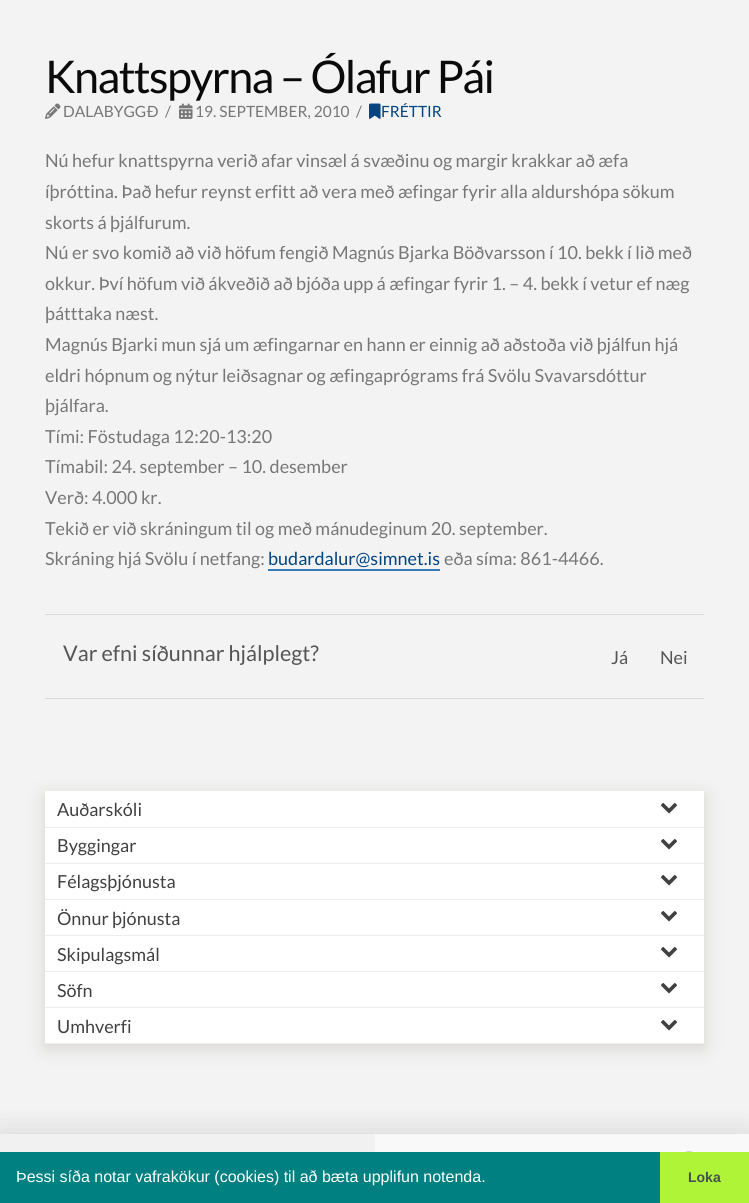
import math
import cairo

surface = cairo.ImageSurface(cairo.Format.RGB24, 749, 1203)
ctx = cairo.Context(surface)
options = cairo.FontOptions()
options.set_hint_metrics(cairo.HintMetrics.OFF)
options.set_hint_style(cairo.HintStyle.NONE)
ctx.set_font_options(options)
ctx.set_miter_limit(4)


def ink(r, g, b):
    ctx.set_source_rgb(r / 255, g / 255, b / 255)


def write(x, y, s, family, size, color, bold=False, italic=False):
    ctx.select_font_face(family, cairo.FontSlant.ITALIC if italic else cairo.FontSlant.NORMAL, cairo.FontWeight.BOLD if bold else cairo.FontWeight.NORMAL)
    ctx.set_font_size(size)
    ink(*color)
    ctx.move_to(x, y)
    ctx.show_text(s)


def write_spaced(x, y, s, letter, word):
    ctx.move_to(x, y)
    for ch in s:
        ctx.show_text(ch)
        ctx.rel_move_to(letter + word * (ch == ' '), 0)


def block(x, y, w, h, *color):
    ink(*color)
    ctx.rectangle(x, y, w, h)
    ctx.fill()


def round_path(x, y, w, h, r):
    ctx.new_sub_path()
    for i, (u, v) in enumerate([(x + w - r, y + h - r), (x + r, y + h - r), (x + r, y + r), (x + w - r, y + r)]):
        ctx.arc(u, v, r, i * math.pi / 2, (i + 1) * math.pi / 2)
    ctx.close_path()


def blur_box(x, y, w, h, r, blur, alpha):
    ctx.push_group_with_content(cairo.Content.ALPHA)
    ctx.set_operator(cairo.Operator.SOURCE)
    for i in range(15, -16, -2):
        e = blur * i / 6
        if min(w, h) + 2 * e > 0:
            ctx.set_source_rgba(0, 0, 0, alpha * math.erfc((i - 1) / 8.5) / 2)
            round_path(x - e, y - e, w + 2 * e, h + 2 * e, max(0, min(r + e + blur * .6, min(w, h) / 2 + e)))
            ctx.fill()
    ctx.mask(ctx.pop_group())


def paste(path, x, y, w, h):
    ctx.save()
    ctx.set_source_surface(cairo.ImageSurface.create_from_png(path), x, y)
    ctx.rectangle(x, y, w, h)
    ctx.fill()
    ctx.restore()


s1 = dict(family="Lato", size=15.5, color=(119, 119, 119))
s2 = dict(family="Lato", size=15.5, color=(3, 68, 129))
s3 = dict(family="Lato", size=18, color=(119, 119, 119))
s4 = dict(family="Lato", size=18, color=(3, 68, 129))
s5 = dict(family="Lato", size=21.6, color=(85, 85, 85))
s6 = dict(family="Lato", size=18, color=(85, 85, 85))
s7 = dict(family="Lato", size=18, color=(64, 64, 64))
s8 = dict(family="Liberation Sans", size=16, color=(255, 255, 255))
s9 = dict(family="Liberation Sans", size=14, color=(70, 78, 81), bold=True)

ink(243, 243, 243)
ctx.paint()
ctx.select_font_face("Lato")
ctx.set_font_size(45)
ink(10, 10, 10)
write_spaced(45, 93, "Knattspyrna – Ólafur Pái", -1.6, 0)
paste("pic1.png", 45, 103, 16, 16)
write(63, 117, "DALABYGGÐ", **s1)
write(165, 117, "/", **s1)
paste("pic2.png", 179, 103, 14, 16)
write(195, 117, "19. SEPTEMBER, 2010", **s1)
write(356, 117, "/", **s1)
paste("pic3.png", 369, 103, 12, 16)
write(381, 117, "FRÉTTIR", **s2)
write(45, 167, "Nú hefur knattspyrna verið afar vinsæl á svæðinu og margir krakkar að æfa", **s3)
write(45, 198, "íþróttina. Það hefur reynst erfitt að vera með æfingar fyrir alla aldurshópa sökum", **s3)
write(45, 229, "skorts á þjálfurum.", **s3)
write(45, 259, "Nú er svo komið að við höfum fengið Magnús Bjarka Böðvarsson í 10. bekk í lið með", **s3)
write(45, 290, "okkur. Því höfum við ákveðið að bjóða upp á æfingar fyrir 1. – 4. bekk í vetur ef næg", **s3)
write(45, 320, "þátttaka næst.", **s3)
write(45, 351, "Magnús Bjarki mun sjá um æfingarnar en hann er einnig að aðstoða við þjálfun hjá", **s3)
write(45, 382, "eldri hópnum og nýtur leiðsagnar og æfingaprógrams frá Svölu Svavarsdóttur", **s3)
write(45, 412, "þjálfara.", **s3)
write(45, 443, "Tími: Föstudaga 12:20-13:20", **s3)
write(45, 473, "Tímabil: 24. september – 10. desember", **s3)
write(45, 504, "Verð: 4.000 kr.", **s3)
write(45, 535, "Tekið er við skráningum til og með mánudeginum 20. september.", **s3)
write(45, 565, "Skráning hjá Svölu í netfang:", **s3)
write(268, 565, "budardalur@simnet.is", **s4)
block(268, 569, 172, 2, 51, 122, 183)
write(444, 565, "eða síma: 861-4466.", **s3)
block(45, 614, 659, 1, 219, 216, 216)
block(45, 698, 659, 1, 216, 216, 216)
write(63, 661, "Var efni síðunnar hjálplegt?", **s5)
write(611, 664, "Já", **s6)
write(660, 664, "Nei", **s6)
ink(131, 125, 111)
blur_box(45, 795, 659, 253, 0, 8.5, 0.26)
block(45, 791, 659, 252, 255, 255, 255)
block(45, 827, 659, 1, 238, 238, 238)
write(57, 816, "Auðarskóli", **s7)
paste("pic4.png", 660, 803, 18, 11)
block(45, 863, 659, 1, 238, 238, 238)
write(57, 852, "Byggingar", **s7)
paste("pic4.png", 660, 839, 18, 11)
block(45, 899, 659, 1, 238, 238, 238)
write(57, 888, "Félagsþjónusta", **s7)
paste("pic4.png", 660, 875, 18, 11)
block(45, 935, 659, 1, 238, 238, 238)
write(57, 925, "Önnur þjónusta", **s7)
paste("pic4.png", 660, 911, 18, 11)
block(45, 971, 659, 1, 238, 238, 238)
write(57, 961, "Skipulagsmál", **s7)
paste("pic4.png", 660, 947, 18, 11)
block(45, 1007, 659, 1, 238, 238, 238)
write(57, 997, "Söfn", **s7)
paste("pic4.png", 660, 983, 18, 11)
block(45, 1043, 659, 1, 238, 238, 238)
write(57, 1033, "Umhverfi", **s7)
paste("pic4.png", 660, 1020, 18, 11)
ink(0, 0, 0)
blur_box(0, 1136, 749, 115, 0, 16, 0.15)
block(0, 1134, 375, 18, 241, 241, 241)
block(375, 1134, 374, 18, 249, 249, 249)
paste("pic5.png", 685, 1151, 8, 1)
block(0, 1152, 660, 51, 0, 128, 128)
write(16, 1182, "Þessi síða notar vafrakökur (cookies) til að bæta upplifun notenda.", **s8)
block(660, 1152, 89, 51, 175, 244, 55)
write(688, 1182, "Loka", **s9)
surface.write_to_png("screenshot.png")
